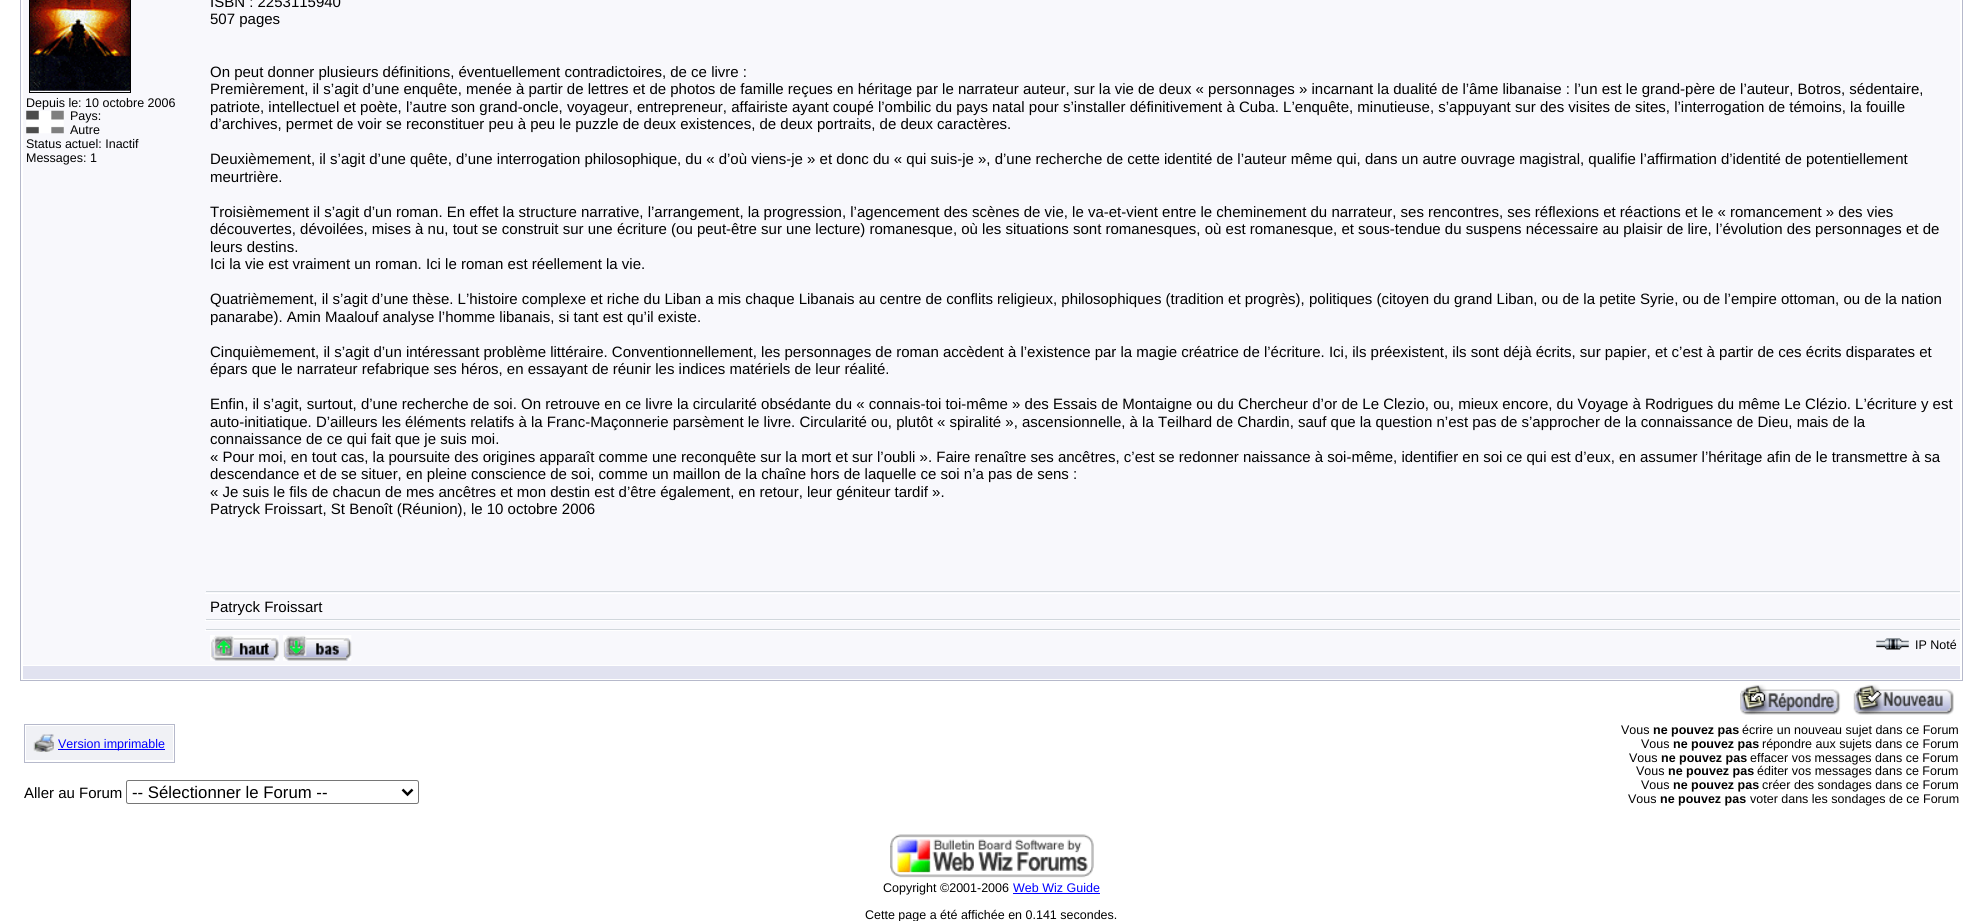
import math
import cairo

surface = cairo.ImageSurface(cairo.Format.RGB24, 1982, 921)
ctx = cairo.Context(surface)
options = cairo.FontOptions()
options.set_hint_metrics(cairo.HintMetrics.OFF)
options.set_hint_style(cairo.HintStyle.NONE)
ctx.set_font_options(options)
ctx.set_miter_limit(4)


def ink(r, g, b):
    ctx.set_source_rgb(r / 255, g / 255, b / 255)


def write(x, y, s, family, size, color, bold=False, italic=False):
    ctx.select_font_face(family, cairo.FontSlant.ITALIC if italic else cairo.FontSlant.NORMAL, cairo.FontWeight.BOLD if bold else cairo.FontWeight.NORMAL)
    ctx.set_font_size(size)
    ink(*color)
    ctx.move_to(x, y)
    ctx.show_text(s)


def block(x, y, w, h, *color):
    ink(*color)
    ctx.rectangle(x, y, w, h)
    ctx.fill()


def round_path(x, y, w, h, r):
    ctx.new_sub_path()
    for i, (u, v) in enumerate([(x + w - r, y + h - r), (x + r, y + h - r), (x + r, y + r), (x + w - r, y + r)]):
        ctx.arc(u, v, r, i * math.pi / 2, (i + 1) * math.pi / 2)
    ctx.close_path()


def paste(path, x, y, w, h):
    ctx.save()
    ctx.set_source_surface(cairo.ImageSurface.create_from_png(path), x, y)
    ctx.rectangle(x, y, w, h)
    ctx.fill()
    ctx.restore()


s1 = dict(family="Liberation Sans", size=12.5, color=(0, 0, 0))
s2 = dict(family="Liberation Sans", size=15, color=(0, 0, 0))
s3 = dict(family="Liberation Sans", size=12.5, color=(0, 0, 255))
s4 = dict(family="Liberation Sans", size=16.75, color=(0, 0, 0))
s5 = dict(family="Liberation Sans", size=12.5, color=(0, 0, 0), bold=True)

ink(255, 255, 255)
ctx.paint()
ctx.rectangle(20.5, -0.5, 1942, 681)
ink(182, 185, 203)
ctx.set_line_width(1)
ctx.stroke()
block(23, 593, 182, 38, 248, 248, 252)
block(23, 0, 1937, 593, 248, 248, 252)
ctx.rectangle(29.5, -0.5, 101, 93)
ink(0, 0, 0)
ctx.stroke()
paste("pic1.png", 30, 0, 100, 91)
write(26, 107, "Depuis le: 10 octobre 2006", **s1)
paste("pic2.png", 26, 110, 38, 24)
write(70, 120, "Pays:", **s1)
write(70, 134, "Autre", **s1)
write(26, 148, "Status actuel: Inactif", **s1)
write(26, 162, "Messages: 1", **s1)
block(206, 591, 1754, 1, 209, 215, 220)
write(210, 7, "ISBN : 2253115940", **s2)
write(210, 24, "507 pages", **s2)
write(210, 77, "On peut donner plusieurs définitions, éventuellement contradictoires, de ce livre :", **s2)
write(210, 94, "Premièrement, il s’agit d’une enquête, menée à partir de lettres et de photos de famille reçues en héritage par le narrateur auteur, sur la vie de deux « personnages » incarnant la dualité de l’âme libanaise : l’un est le grand-père de l’auteur, Botros, sédentaire,", **s2)
write(210, 112, "patriote, intellectuel et poète, l’autre son grand-oncle, voyageur, entrepreneur, affairiste ayant coupé l’ombilic du pays natal pour s’installer définitivement à Cuba. L’enquête, minutieuse, s’appuyant sur des visites de sites, l’interrogation de témoins, la fouille", **s2)
write(210, 129, "d’archives, permet de voir se reconstituer peu à peu le puzzle de deux existences, de deux portraits, de deux caractères.", **s2)
write(210, 164, "Deuxièmement, il s’agit d’une quête, d’une interrogation philosophique, du « d’où viens-je » et donc du « qui suis-je », d’une recherche de cette identité de l’auteur même qui, dans un autre ouvrage magistral, qualifie l’affirmation d’identité de potentiellement", **s2)
write(210, 182, "meurtrière.", **s2)
write(210, 217, "Troisièmement il s’agit d’un roman. En effet la structure narrative, l’arrangement, la progression, l’agencement des scènes de vie, le va-et-vient entre le cheminement du narrateur, ses rencontres, ses réflexions et réactions et le « romancement » des vies", **s2)
write(210, 234, "découvertes, dévoilées, mises à nu, tout se construit sur une écriture (ou peut-être sur une lecture) romanesque, où les situations sont romanesques, où est romanesque, et sous-tendue du suspens nécessaire au plaisir de lire, l’évolution des personnages et de", **s2)
write(210, 252, "leurs destins.", **s2)
write(210, 269, "Ici la vie est vraiment un roman. Ici le roman est réellement la vie.", **s2)
write(210, 304, "Quatrièmement, il s’agit d’une thèse. L’histoire complexe et riche du Liban a mis chaque Libanais au centre de conflits religieux, philosophiques (tradition et progrès), politiques (citoyen du grand Liban, ou de la petite Syrie, ou de l’empire ottoman, ou de la nation", **s2)
write(210, 322, "panarabe). Amin Maalouf analyse l’homme libanais, si tant est qu’il existe.", **s2)
write(210, 357, "Cinquièmement, il s’agit d’un intéressant problème littéraire. Conventionnellement, les personnages de roman accèdent à l’existence par la magie créatrice de l’écriture. Ici, ils préexistent, ils sont déjà écrits, sur papier, et c’est à partir de ces écrits disparates et", **s2)
write(210, 374, "épars que le narrateur refabrique ses héros, en essayant de réunir les indices matériels de leur réalité.", **s2)
write(210, 409, "Enfin, il s’agit, surtout, d’une recherche de soi. On retrouve en ce livre la circularité obsédante du « connais-toi toi-même » des Essais de Montaigne ou du Chercheur d’or de Le Clezio, ou, mieux encore, du Voyage à Rodrigues du même Le Clézio. L’écriture y est", **s2)
write(210, 427, "auto-initiatique. D’ailleurs les éléments relatifs à la Franc-Maçonnerie parsèment le livre. Circularité ou, plutôt « spiralité », ascensionnelle, à la Teilhard de Chardin, sauf que la question n’est pas de s’approcher de la connaissance de Dieu, mais de la", **s2)
write(210, 444, "connaissance de ce qui fait que je suis moi.", **s2)
write(210, 462, "« Pour moi, en tout cas, la poursuite des origines apparaît comme une reconquête sur la mort et sur l’oubli ». Faire renaître ses ancêtres, c’est se redonner naissance à soi-même, identifier en soi ce qui est d’eux, en assumer l’héritage afin de le transmettre à sa", **s2)
write(210, 479, "descendance et de se situer, en pleine conscience de soi, comme un maillon de la chaîne hors de laquelle ce soi n’a pas de sens :", **s2)
write(210, 497, "« Je suis le fils de chacun de mes ancêtres et mon destin est d’être également, en retour, leur géniteur tardif ».", **s2)
write(210, 514, "Patryck Froissart, St Benoît (Réunion), le 10 octobre 2006", **s2)
block(205, 594, 1755, 26, 248, 248, 252)
block(206, 619, 1754, 1, 209, 215, 220)
write(210, 612, "Patryck Froissart", **s2)
block(205, 621, 1755, 9, 248, 248, 252)
block(206, 629, 1754, 1, 209, 215, 220)
block(23, 631, 1937, 34, 248, 248, 252)
paste("pic3.png", 210, 635, 69, 26)
paste("pic4.png", 283, 635, 69, 26)
paste("pic5.png", 1876, 638, 33, 12)
write(1915, 649, "IP Noté", **s1)
block(23, 666, 1937, 13, 225, 226, 240)
paste("pic6.png", 1740, 684, 101, 31)
paste("pic7.png", 1853, 684, 101, 31)
ctx.rectangle(24.5, 724.5, 150, 38)
ink(182, 185, 203)
ctx.stroke()
block(26, 726, 147, 34, 240, 241, 245)
paste("pic8.png", 33, 734, 21, 18)
block(58, 749, 107, 1, 0, 0, 255)
write(58, 748, "Version imprimable", **s3)
write(24, 798, "Aller au Forum", **s2)
round_path(126.5, 780.5, 292, 23, 2)
ink(118, 118, 118)
ctx.stroke()
ctx.new_path()
ctx.move_to(402.5, 789.5)
ctx.line_to(407.5, 794.5)
ctx.line_to(412.5, 789.5)
ink(0, 0, 0)
ctx.set_line_width(2.5)
ctx.stroke()
write(132, 798, "-- Sélectionner le Forum --", **s4)
write(1621, 734, "Vous", **s1)
write(1653, 734, "ne pouvez pas", **s5)
write(1742, 734, "écrire un nouveau sujet dans ce Forum", **s1)
write(1641, 748, "Vous", **s1)
write(1673, 748, "ne pouvez pas", **s5)
write(1762, 748, "répondre aux sujets dans ce Forum", **s1)
write(1629, 762, "Vous", **s1)
write(1661, 762, "ne pouvez pas", **s5)
write(1750, 762, "effacer vos messages dans ce Forum", **s1)
write(1636, 775, "Vous", **s1)
write(1668, 775, "ne pouvez pas", **s5)
write(1757, 775, "éditer vos messages dans ce Forum", **s1)
write(1641, 789, "Vous", **s1)
write(1673, 789, "ne pouvez pas", **s5)
write(1762, 789, "créer des sondages dans ce Forum", **s1)
write(1628, 803, "Vous", **s1)
write(1660, 803, "ne pouvez pas", **s5)
write(1750, 803, "voter dans les sondages de ce Forum", **s1)
paste("pic9.png", 890, 834, 204, 44)
write(883, 892, "Copyright ©2001-2006", **s1)
write(1013, 892, "Web Wiz Guide", **s3)
block(1013, 893, 87, 1, 0, 0, 255)
write(865, 919, "Cette page a été affichée en 0.141 secondes.", **s1)
surface.write_to_png("screenshot.png")
